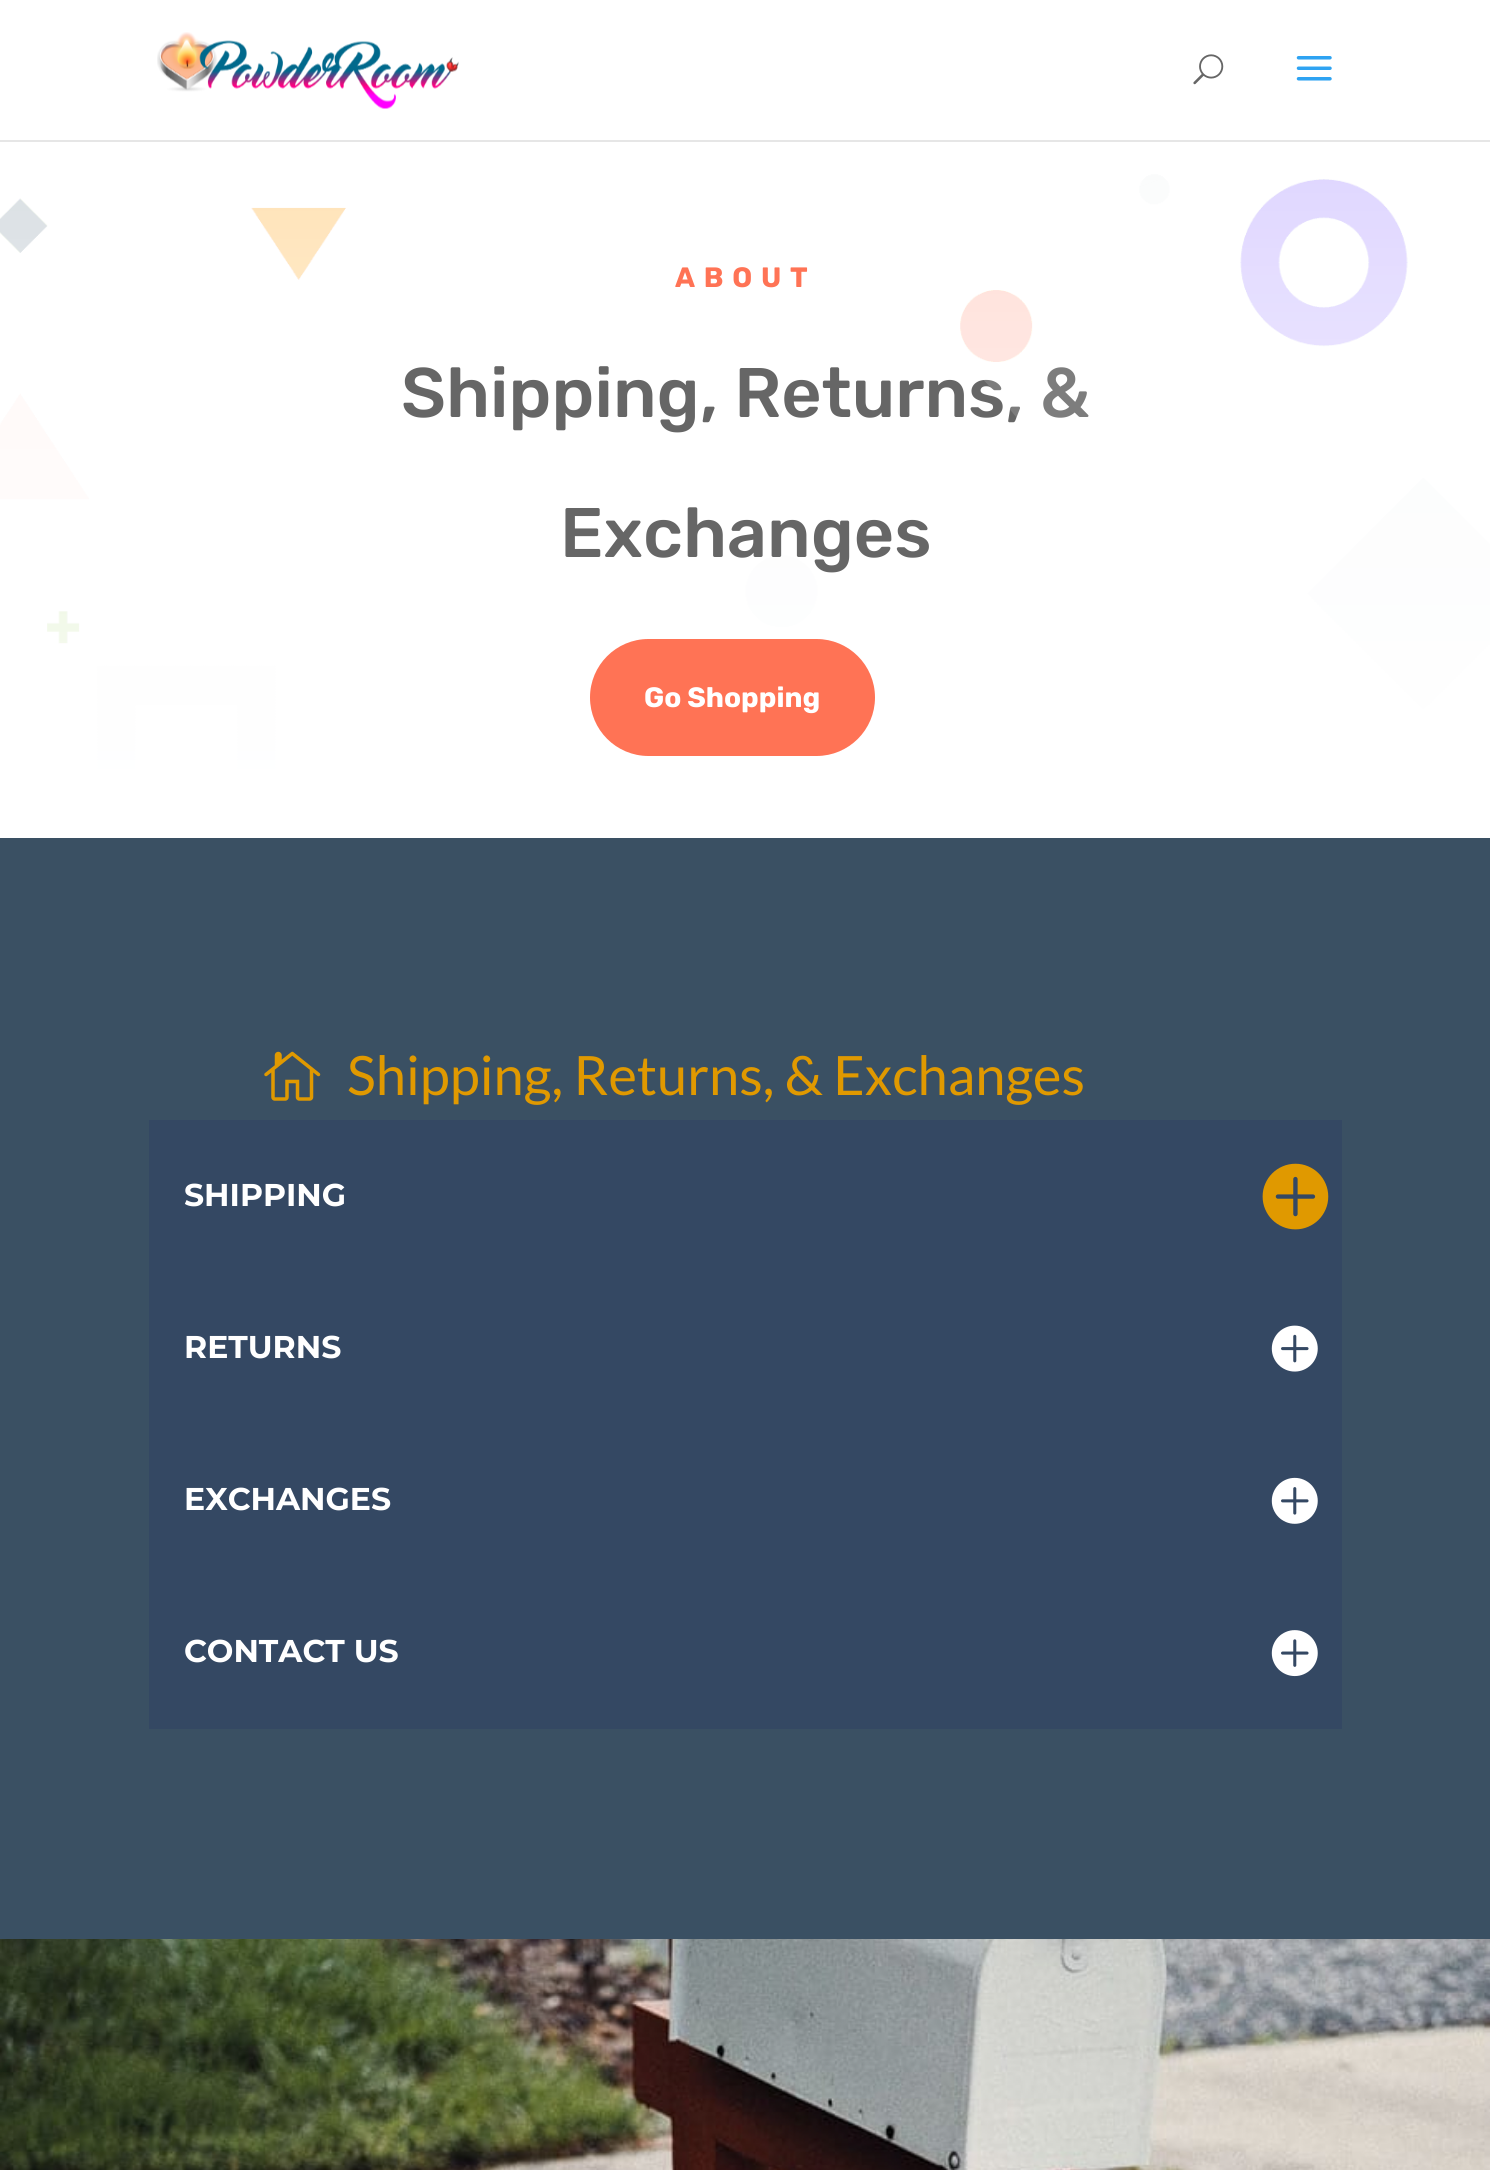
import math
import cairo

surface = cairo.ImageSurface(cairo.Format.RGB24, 1490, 2170)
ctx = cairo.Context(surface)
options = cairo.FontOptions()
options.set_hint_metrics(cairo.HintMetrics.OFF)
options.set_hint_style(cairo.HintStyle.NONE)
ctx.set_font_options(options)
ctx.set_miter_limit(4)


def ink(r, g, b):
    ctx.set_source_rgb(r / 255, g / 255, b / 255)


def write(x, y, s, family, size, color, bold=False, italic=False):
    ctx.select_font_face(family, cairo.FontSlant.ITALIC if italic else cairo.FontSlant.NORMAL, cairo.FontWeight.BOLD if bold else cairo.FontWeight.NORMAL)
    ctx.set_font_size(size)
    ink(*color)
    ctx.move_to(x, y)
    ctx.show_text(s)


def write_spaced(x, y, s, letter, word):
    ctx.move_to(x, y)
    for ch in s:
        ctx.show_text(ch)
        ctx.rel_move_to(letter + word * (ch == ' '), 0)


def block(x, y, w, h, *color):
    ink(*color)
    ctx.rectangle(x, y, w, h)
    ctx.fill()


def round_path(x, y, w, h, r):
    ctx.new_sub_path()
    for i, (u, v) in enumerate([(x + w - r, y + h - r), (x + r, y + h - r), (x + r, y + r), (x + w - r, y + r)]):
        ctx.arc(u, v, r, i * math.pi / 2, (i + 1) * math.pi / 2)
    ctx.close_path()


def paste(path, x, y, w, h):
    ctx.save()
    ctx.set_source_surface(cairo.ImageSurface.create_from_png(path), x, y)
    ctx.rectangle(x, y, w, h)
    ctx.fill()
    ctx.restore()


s1 = dict(family="Rubik Medium", size=70, color=(102, 102, 102))
s2 = dict(family="Rubik", size=28, color=(255, 255, 255), bold=True)
s3 = dict(family="Lato", size=54.25, color=(224, 153, 0))
s4 = dict(family="Montserrat", size=31.5, color=(255, 255, 255), bold=True)

ink(255, 255, 255)
ctx.paint()
block(0, 140, 1490, 2, 230, 230, 230)
paste("pic1.png", 157, 32, 302, 77)
paste("pic2.png", 1193, 54, 31, 31)
paste("pic3.png", 1296, 56, 36, 25)
paste("pic4.png", 0, 174, 1490, 650)
gradient = cairo.LinearGradient(746, 138, 746, 838)
gradient.add_color_stop_rgba(0, 1, 1, 1, 0.7)
gradient.add_color_stop_rgba(1, 1, 1, 1, 1)
ctx.set_source(gradient)
ctx.rectangle(0, 174, 1490, 650)
ctx.fill()
ctx.select_font_face("Rubik", cairo.FontSlant.NORMAL, cairo.FontWeight.BOLD)
ctx.set_font_size(28)
ink(255, 115, 85)
write_spaced(675, 287, "ABOUT", 8.75, 0)
write(401, 417, "Shipping, Returns, &", **s1)
paste("pic5.png", 0, 180, 1407, 238)
write(560, 557, "Exchanges", **s1)
ink(255, 115, 85)
round_path(590, 639, 285, 117, 58.5)
ctx.fill()
write(644, 707, "Go Shopping", **s2)
block(0, 838, 1490, 1101, 58, 80, 99)
paste("pic6.png", 264, 1051, 57, 50)
write(347, 1095, "Shipping, Returns, & Exchanges", **s3)
block(149, 1120, 1193, 609, 52, 72, 99)
write(184, 1206, "SHIPPING", **s4)
paste("pic7.png", 1262, 1163, 67, 67)
write(184, 1358, "RETURNS", **s4)
paste("pic8.png", 1271, 1325, 47, 47)
write(184, 1510, "EXCHANGES", **s4)
paste("pic9.png", 1271, 1477, 47, 47)
write(184, 1662, "CONTACT US", **s4)
paste("pic10.png", 1271, 1630, 47, 47)
paste("pic11.png", 0, 1939, 1490, 231)
surface.write_to_png("screenshot.png")
